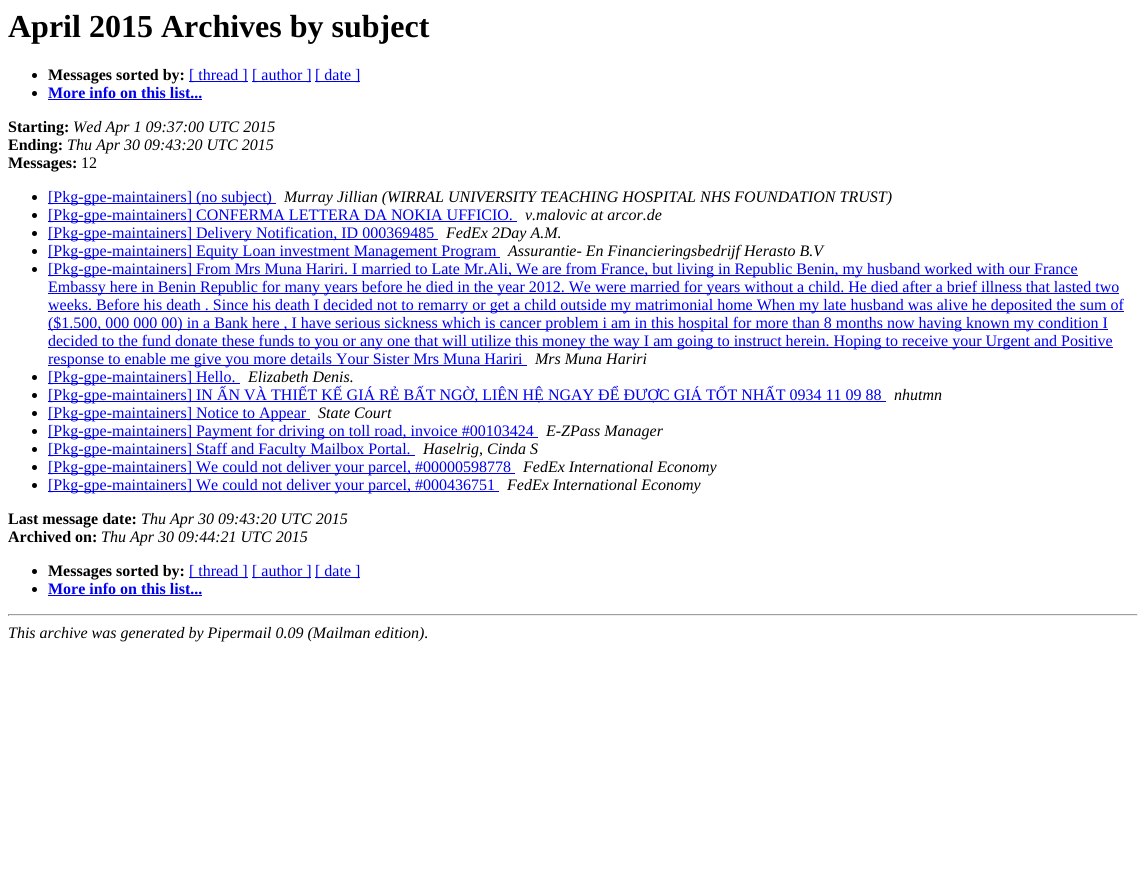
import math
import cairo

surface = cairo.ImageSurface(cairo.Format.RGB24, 1146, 895)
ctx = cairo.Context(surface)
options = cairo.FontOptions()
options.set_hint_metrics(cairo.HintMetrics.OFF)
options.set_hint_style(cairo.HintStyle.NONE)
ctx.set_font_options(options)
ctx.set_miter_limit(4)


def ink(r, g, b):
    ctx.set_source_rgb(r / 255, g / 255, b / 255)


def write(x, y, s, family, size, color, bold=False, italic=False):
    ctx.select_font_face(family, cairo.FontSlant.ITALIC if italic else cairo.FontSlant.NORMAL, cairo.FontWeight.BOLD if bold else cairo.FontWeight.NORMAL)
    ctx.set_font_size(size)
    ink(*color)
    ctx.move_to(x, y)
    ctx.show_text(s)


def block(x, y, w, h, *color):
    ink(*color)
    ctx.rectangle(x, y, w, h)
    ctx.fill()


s1 = dict(family="Liberation Serif", size=32, color=(0, 0, 0), bold=True)
s2 = dict(family="Liberation Serif", size=16, color=(0, 0, 0), bold=True)
s3 = dict(family="Liberation Serif", size=16, color=(0, 0, 238))
s4 = dict(family="Liberation Serif", size=16, color=(0, 0, 238), bold=True)
s5 = dict(family="Liberation Serif", size=16, color=(0, 0, 0), italic=True)
s6 = dict(family="Liberation Serif", size=16, color=(0, 0, 0))

ink(255, 255, 255)
ctx.paint()
write(8, 37, "April 2015 Archives by subject", **s1)
ctx.new_path()
ctx.arc(34.5, 75.5, 2.5, 0, 2 * math.pi)
ctx.fill()
write(48, 80, "Messages sorted by:", **s2)
block(189, 81, 59, 1, 0, 0, 238)
write(189, 80, "[ thread ]", **s3)
block(252, 81, 59, 1, 0, 0, 238)
write(252, 80, "[ author ]", **s3)
block(315, 81, 45, 1, 0, 0, 238)
write(315, 80, "[ date ]", **s3)
ink(0, 0, 0)
ctx.new_path()
ctx.arc(34.5, 93.5, 2.5, 0, 2 * math.pi)
ctx.fill()
write(48, 98, "More info on this list...", **s4)
block(48, 99, 154, 1, 0, 0, 238)
write(8, 132, "Starting:", **s2)
write(73, 132, "Wed Apr 1 09:37:00 UTC 2015", **s5)
write(8, 150, "Ending:", **s2)
write(67, 150, "Thu Apr 30 09:43:20 UTC 2015", **s5)
write(8, 168, "Messages:", **s2)
write(81, 168, "12", **s6)
ctx.new_path()
ctx.arc(34.5, 197.5, 2.5, 0, 2 * math.pi)
ctx.fill()
block(48, 203, 228, 1, 0, 0, 238)
write(48, 202, "[Pkg-gpe-maintainers] (no subject)", **s3)
write(284, 202, "Murray Jillian (WIRRAL UNIVERSITY TEACHING HOSPITAL NHS FOUNDATION TRUST)", **s5)
ctx.new_path()
ctx.arc(34.5, 215.5, 2.5, 0, 2 * math.pi)
ctx.fill()
block(48, 221, 469, 1, 0, 0, 238)
write(48, 220, "[Pkg-gpe-maintainers] CONFERMA LETTERA DA NOKIA UFFICIO.", **s3)
write(525, 220, "v.malovic at arcor.de", **s5)
ctx.new_path()
ctx.arc(34.5, 233.5, 2.5, 0, 2 * math.pi)
ctx.fill()
block(48, 239, 390, 1, 0, 0, 238)
write(48, 238, "[Pkg-gpe-maintainers] Delivery Notification, ID 000369485", **s3)
write(446, 238, "FedEx 2Day A.M.", **s5)
ctx.new_path()
ctx.arc(34.5, 251.5, 2.5, 0, 2 * math.pi)
ctx.fill()
block(48, 257, 452, 1, 0, 0, 238)
write(48, 256, "[Pkg-gpe-maintainers] Equity Loan investment Management Program", **s3)
write(508, 256, "Assurantie- En Financieringsbedrijf Herasto B.V", **s5)
ctx.new_path()
ctx.arc(34.5, 269.5, 2.5, 0, 2 * math.pi)
ctx.fill()
block(48, 275, 1030, 1, 0, 0, 238)
write(48, 274, "[Pkg-gpe-maintainers] From Mrs Muna Hariri. I married to Late Mr.Ali, We are from France, but living in Republic Benin, my husband worked with our France", **s3)
block(48, 293, 1071, 1, 0, 0, 238)
write(48, 292, "Embassy here in Benin Republic for many years before he died in the year 2012. We were married for years without a child. He died after a brief illness that lasted two", **s3)
block(48, 311, 1076, 1, 0, 0, 238)
write(48, 310, "weeks. Before his death . Since his death I decided not to remarry or get a child outside my matrimonial home When my late husband was alive he deposited the sum of", **s3)
block(48, 329, 1060, 1, 0, 0, 238)
write(48, 328, "($1.500, 000 000 00) in a Bank here , I have serious sickness which is cancer problem i am in this hospital for more than 8 months now having known my condition I", **s3)
block(48, 347, 1065, 1, 0, 0, 238)
write(48, 346, "decided to the fund donate these funds to you or any one that will utilize this money the way I am going to instruct herein. Hoping to receive your Urgent and Positive", **s3)
block(48, 365, 479, 1, 0, 0, 238)
write(48, 364, "response to enable me give you more details Your Sister Mrs Muna Hariri", **s3)
write(535, 364, "Mrs Muna Hariri", **s5)
ctx.new_path()
ctx.arc(34.5, 377.5, 2.5, 0, 2 * math.pi)
ctx.fill()
block(48, 383, 192, 1, 0, 0, 238)
write(48, 382, "[Pkg-gpe-maintainers] Hello.", **s3)
write(248, 382, "Elizabeth Denis.", **s5)
ctx.new_path()
ctx.arc(34.5, 395.5, 2.5, 0, 2 * math.pi)
ctx.fill()
block(48, 401, 838, 1, 0, 0, 238)
write(48, 400, "[Pkg-gpe-maintainers] IN ẤN VÀ THIẾT KẾ GIÁ RẺ BẤT NGỜ, LIÊN HỆ NGAY ĐỂ ĐƯỢC GIÁ TỐT NHẤT 0934 11 09 88", **s3)
write(894, 400, "nhutmn", **s5)
ctx.new_path()
ctx.arc(34.5, 413.5, 2.5, 0, 2 * math.pi)
ctx.fill()
block(48, 419, 262, 1, 0, 0, 238)
write(48, 418, "[Pkg-gpe-maintainers] Notice to Appear", **s3)
write(318, 418, "State Court", **s5)
ctx.new_path()
ctx.arc(34.5, 431.5, 2.5, 0, 2 * math.pi)
ctx.fill()
block(48, 437, 490, 1, 0, 0, 238)
write(48, 436, "[Pkg-gpe-maintainers] Payment for driving on toll road, invoice #00103424", **s3)
write(546, 436, "E-ZPass Manager", **s5)
ctx.new_path()
ctx.arc(34.5, 449.5, 2.5, 0, 2 * math.pi)
ctx.fill()
block(48, 455, 367, 1, 0, 0, 238)
write(48, 454, "[Pkg-gpe-maintainers] Staff and Faculty Mailbox Portal.", **s3)
write(423, 454, "Haselrig, Cinda S", **s5)
ctx.new_path()
ctx.arc(34.5, 467.5, 2.5, 0, 2 * math.pi)
ctx.fill()
block(48, 473, 467, 1, 0, 0, 238)
write(48, 472, "[Pkg-gpe-maintainers] We could not deliver your parcel, #00000598778", **s3)
write(523, 472, "FedEx International Economy", **s5)
ctx.new_path()
ctx.arc(34.5, 485.5, 2.5, 0, 2 * math.pi)
ctx.fill()
block(48, 491, 451, 1, 0, 0, 238)
write(48, 490, "[Pkg-gpe-maintainers] We could not deliver your parcel, #000436751", **s3)
write(507, 490, "FedEx International Economy", **s5)
write(8, 524, "Last message date:", **s2)
write(141, 524, "Thu Apr 30 09:43:20 UTC 2015", **s5)
write(8, 542, "Archived on:", **s2)
write(101, 542, "Thu Apr 30 09:44:21 UTC 2015", **s5)
ctx.new_path()
ctx.arc(34.5, 571.5, 2.5, 0, 2 * math.pi)
ctx.fill()
write(48, 576, "Messages sorted by:", **s2)
block(189, 577, 59, 1, 0, 0, 238)
write(189, 576, "[ thread ]", **s3)
block(252, 577, 59, 1, 0, 0, 238)
write(252, 576, "[ author ]", **s3)
block(315, 577, 45, 1, 0, 0, 238)
write(315, 576, "[ date ]", **s3)
ink(0, 0, 0)
ctx.new_path()
ctx.arc(34.5, 589.5, 2.5, 0, 2 * math.pi)
ctx.fill()
write(48, 594, "More info on this list...", **s4)
block(48, 595, 154, 1, 0, 0, 238)
block(8, 614, 1130, 1, 159, 159, 159)
block(1137, 614, 1, 2, 238, 238, 238)
block(8, 615, 1130, 1, 238, 238, 238)
block(8, 614, 1, 2, 159, 159, 159)
write(8, 638, "This archive was generated by Pipermail 0.09 (Mailman edition).", **s5)
surface.write_to_png("screenshot.png")
